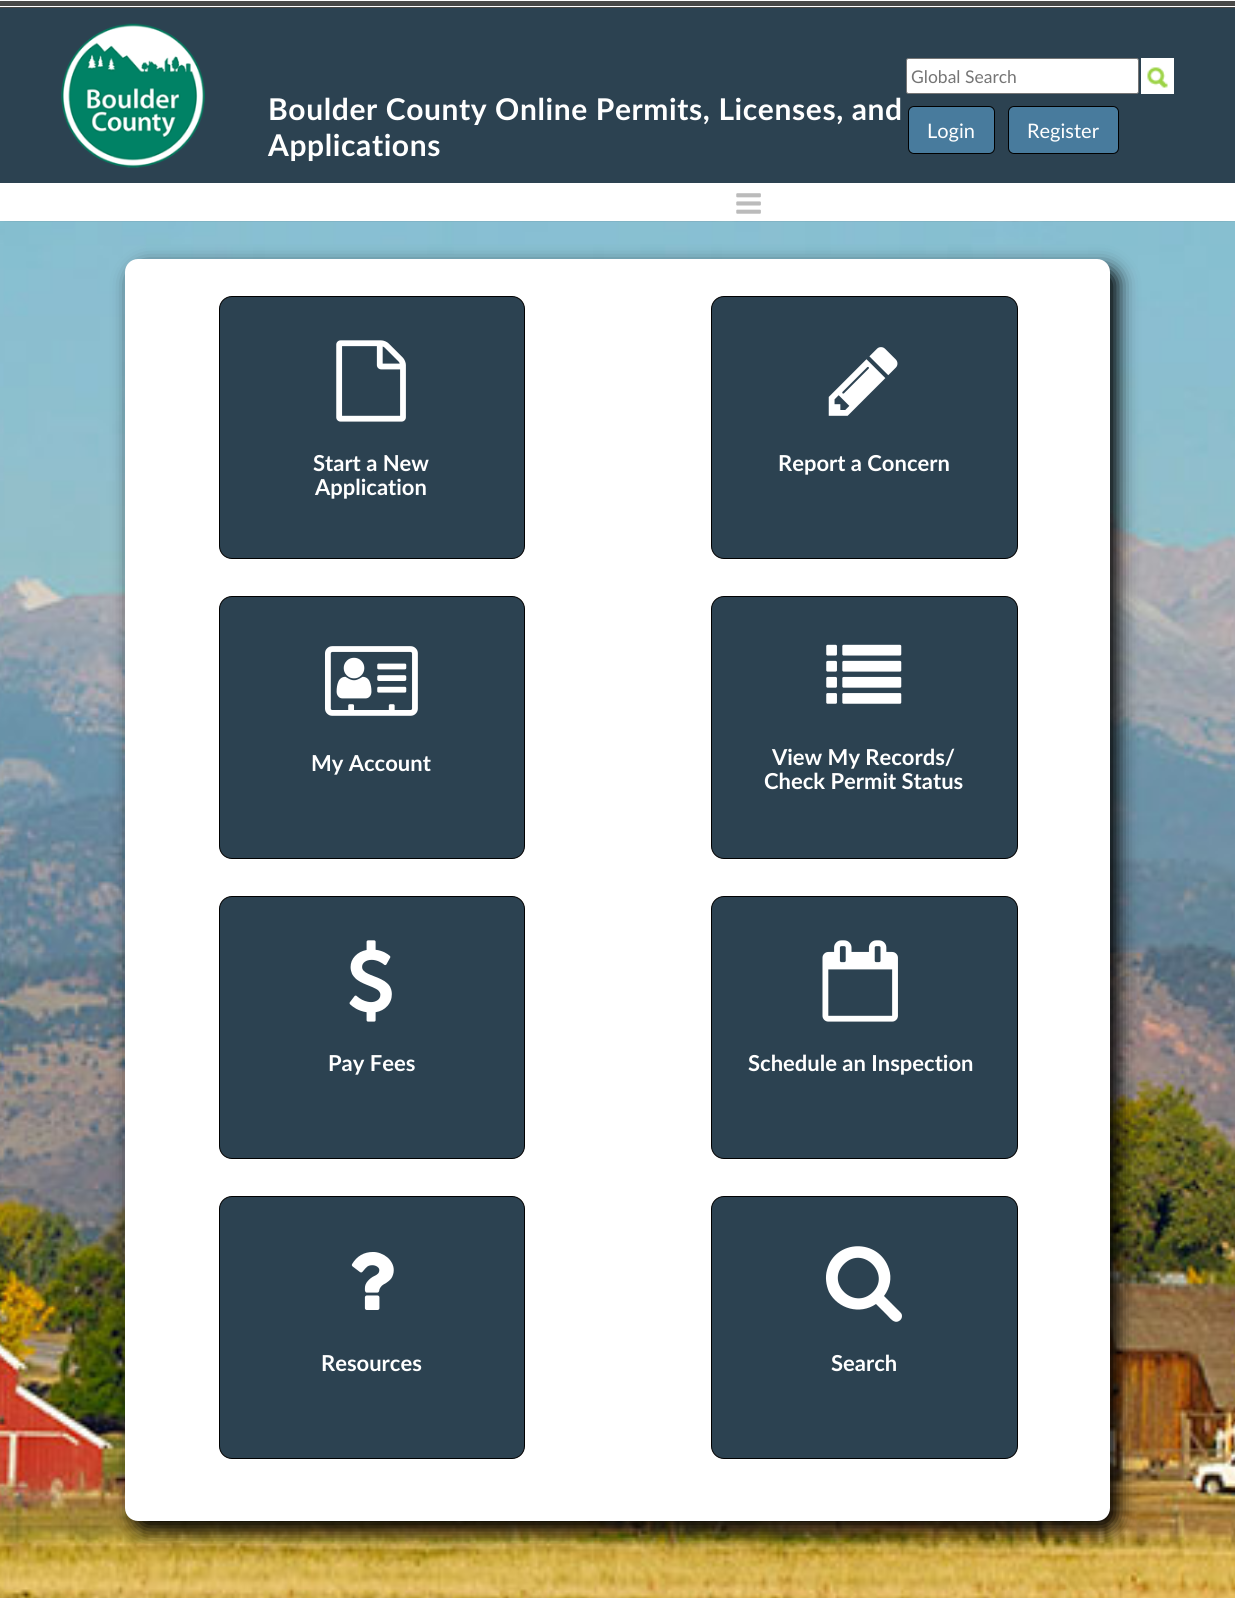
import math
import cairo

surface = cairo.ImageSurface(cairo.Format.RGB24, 1235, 1598)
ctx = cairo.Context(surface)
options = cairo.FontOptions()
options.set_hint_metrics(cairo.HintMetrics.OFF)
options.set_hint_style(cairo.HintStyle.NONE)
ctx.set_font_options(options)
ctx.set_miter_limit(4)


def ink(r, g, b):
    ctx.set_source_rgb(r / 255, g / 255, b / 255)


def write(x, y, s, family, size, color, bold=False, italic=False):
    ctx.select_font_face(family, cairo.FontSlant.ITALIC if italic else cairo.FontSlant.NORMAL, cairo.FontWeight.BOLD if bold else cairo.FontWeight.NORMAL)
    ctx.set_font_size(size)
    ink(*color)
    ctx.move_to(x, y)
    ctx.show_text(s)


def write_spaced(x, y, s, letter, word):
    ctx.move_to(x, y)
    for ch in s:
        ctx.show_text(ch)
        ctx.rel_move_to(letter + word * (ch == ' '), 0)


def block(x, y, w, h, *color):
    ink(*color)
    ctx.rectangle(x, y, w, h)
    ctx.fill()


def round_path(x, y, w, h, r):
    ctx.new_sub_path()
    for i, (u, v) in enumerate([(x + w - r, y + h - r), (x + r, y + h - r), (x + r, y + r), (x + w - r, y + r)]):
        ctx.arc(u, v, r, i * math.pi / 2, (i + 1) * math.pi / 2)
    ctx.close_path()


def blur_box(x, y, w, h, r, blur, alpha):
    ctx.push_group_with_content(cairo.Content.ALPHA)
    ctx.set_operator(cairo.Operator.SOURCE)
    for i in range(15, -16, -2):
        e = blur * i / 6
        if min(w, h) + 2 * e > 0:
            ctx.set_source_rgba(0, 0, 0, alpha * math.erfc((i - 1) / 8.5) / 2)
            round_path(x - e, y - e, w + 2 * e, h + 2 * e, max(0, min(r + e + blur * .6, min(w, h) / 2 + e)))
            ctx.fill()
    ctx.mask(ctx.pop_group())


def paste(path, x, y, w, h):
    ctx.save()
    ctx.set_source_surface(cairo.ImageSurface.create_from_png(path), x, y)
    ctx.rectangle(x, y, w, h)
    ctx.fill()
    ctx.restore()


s1 = dict(family="Lato", size=17.5, color=(117, 117, 117))
s2 = dict(family="Lato", size=20, color=(255, 255, 255))
s3 = dict(family="Lato", size=22, color=(255, 255, 255), bold=True)

ink(255, 255, 255)
ctx.paint()
paste("pic1.png", 0, 221, 1235, 1)
ink(0, 0, 0)
blur_box(3, 16, 1230, 217, 0, 9, 0.24)
block(0, 8, 1235, 175, 44, 66, 81)
block(0, 1, 1235, 7, 72, 72, 71)
block(22, 0, 1192, 1, 255, 255, 255)
block(0, 6, 1235, 1, 255, 255, 255)
paste("pic2.png", 61, 23, 144, 145)
ctx.select_font_face("Lato", cairo.FontSlant.NORMAL, cairo.FontWeight.BOLD)
ctx.set_font_size(30)
write_spaced(268, 120, "Boulder County Online Permits, Licenses, and", 0.6, 0)
write_spaced(268, 156, "Applications", 0.6, 0)
round_path(906.5, 58.5, 232, 35, 2)
ctx.fill_preserve()
ink(118, 118, 118)
ctx.set_line_width(1)
ctx.stroke()
write(911, 83, "Global Search", **s1)
block(1141, 58, 33, 36, 255, 255, 255)
paste("pic3.png", 1147, 67, 21, 21)
ink(72, 123, 157)
round_path(908.5, 106.5, 86, 47, 5.5)
ctx.fill_preserve()
ink(0, 0, 0)
ctx.stroke()
write(927, 138, "Login", **s2)
ink(72, 123, 157)
round_path(1008.5, 106.5, 110, 47, 5.5)
ctx.fill_preserve()
ink(0, 0, 0)
ctx.stroke()
write(1027, 138, "Register", **s2)
block(0, 183, 1235, 38, 255, 255, 255)
paste("pic4.png", 736, 193, 25, 21)
paste("pic5.png", 0, 221, 1235, 1377)
ink(0, 0, 0)
blur_box(133, 268, 985, 1262, 13, 9.5, 1)
ink(255, 255, 255)
round_path(125, 259, 985, 1262, 13)
ctx.fill()
ink(44, 66, 81)
round_path(219.5, 296.5, 305, 262, 12.5)
ctx.fill_preserve()
ink(0, 0, 0)
ctx.stroke()
paste("pic6.png", 336, 340, 70, 82)
write(313, 471, "Start a New", **s3)
write(315, 495, "Application", **s3)
ink(44, 66, 81)
round_path(711.5, 296.5, 306, 262, 12.5)
ctx.fill_preserve()
ink(0, 0, 0)
ctx.stroke()
paste("pic7.png", 828, 347, 70, 69)
write(778, 471, "Report a Concern", **s3)
ink(44, 66, 81)
round_path(219.5, 596.5, 305, 262, 12.5)
ctx.fill_preserve()
ink(0, 0, 0)
ctx.stroke()
paste("pic8.png", 325, 646, 93, 70)
write(311, 771, "My Account", **s3)
ink(44, 66, 81)
round_path(711.5, 596.5, 306, 262, 12.5)
ctx.fill_preserve()
ink(0, 0, 0)
ctx.stroke()
paste("pic9.png", 826, 644, 76, 60)
write(772, 765, "View My Records/", **s3)
write(764, 789, "Check Permit Status", **s3)
ink(44, 66, 81)
round_path(219.5, 896.5, 305, 262, 12.5)
ctx.fill_preserve()
ink(0, 0, 0)
ctx.stroke()
paste("pic10.png", 349, 940, 43, 82)
write(328, 1071, "Pay Fees", **s3)
ink(44, 66, 81)
round_path(711.5, 896.5, 306, 262, 12.5)
ctx.fill_preserve()
ink(0, 0, 0)
ctx.stroke()
paste("pic11.png", 822, 940, 76, 82)
write(748, 1071, "Schedule an Inspection", **s3)
ink(44, 66, 81)
round_path(219.5, 1196.5, 305, 262, 12.5)
ctx.fill_preserve()
ink(0, 0, 0)
ctx.stroke()
paste("pic12.png", 351, 1252, 43, 58)
write(321, 1371, "Resources", **s3)
ink(44, 66, 81)
round_path(711.5, 1196.5, 306, 262, 12.5)
ctx.fill_preserve()
ink(0, 0, 0)
ctx.stroke()
ink(255, 255, 255)
ctx.new_path()
ctx.move_to(873, 1292)
ctx.curve_to(891, 1274, 863, 1245, 844, 1264)
ctx.curve_to(825, 1283, 854, 1311, 873, 1292)
ctx.close_path()
ctx.move_to(902, 1316)
ctx.curve_to(902, 1318, 901, 1320, 899, 1321)
ctx.curve_to(894, 1324, 890, 1318, 887, 1315)
ctx.line_to(876, 1304)
ctx.curve_to(860, 1315, 838, 1309, 829, 1292)
ctx.curve_to(826, 1285, 825, 1277, 827, 1270)
ctx.curve_to(835, 1239, 879, 1238, 889, 1269)
ctx.curve_to(892, 1278, 890, 1288, 884, 1296)
ctx.line_to(900, 1312)
ctx.curve_to(901, 1313, 902, 1314, 902, 1316)
ctx.close_path()
ctx.fill()
write(831, 1371, "Search", **s3)
surface.write_to_png("screenshot.png")
